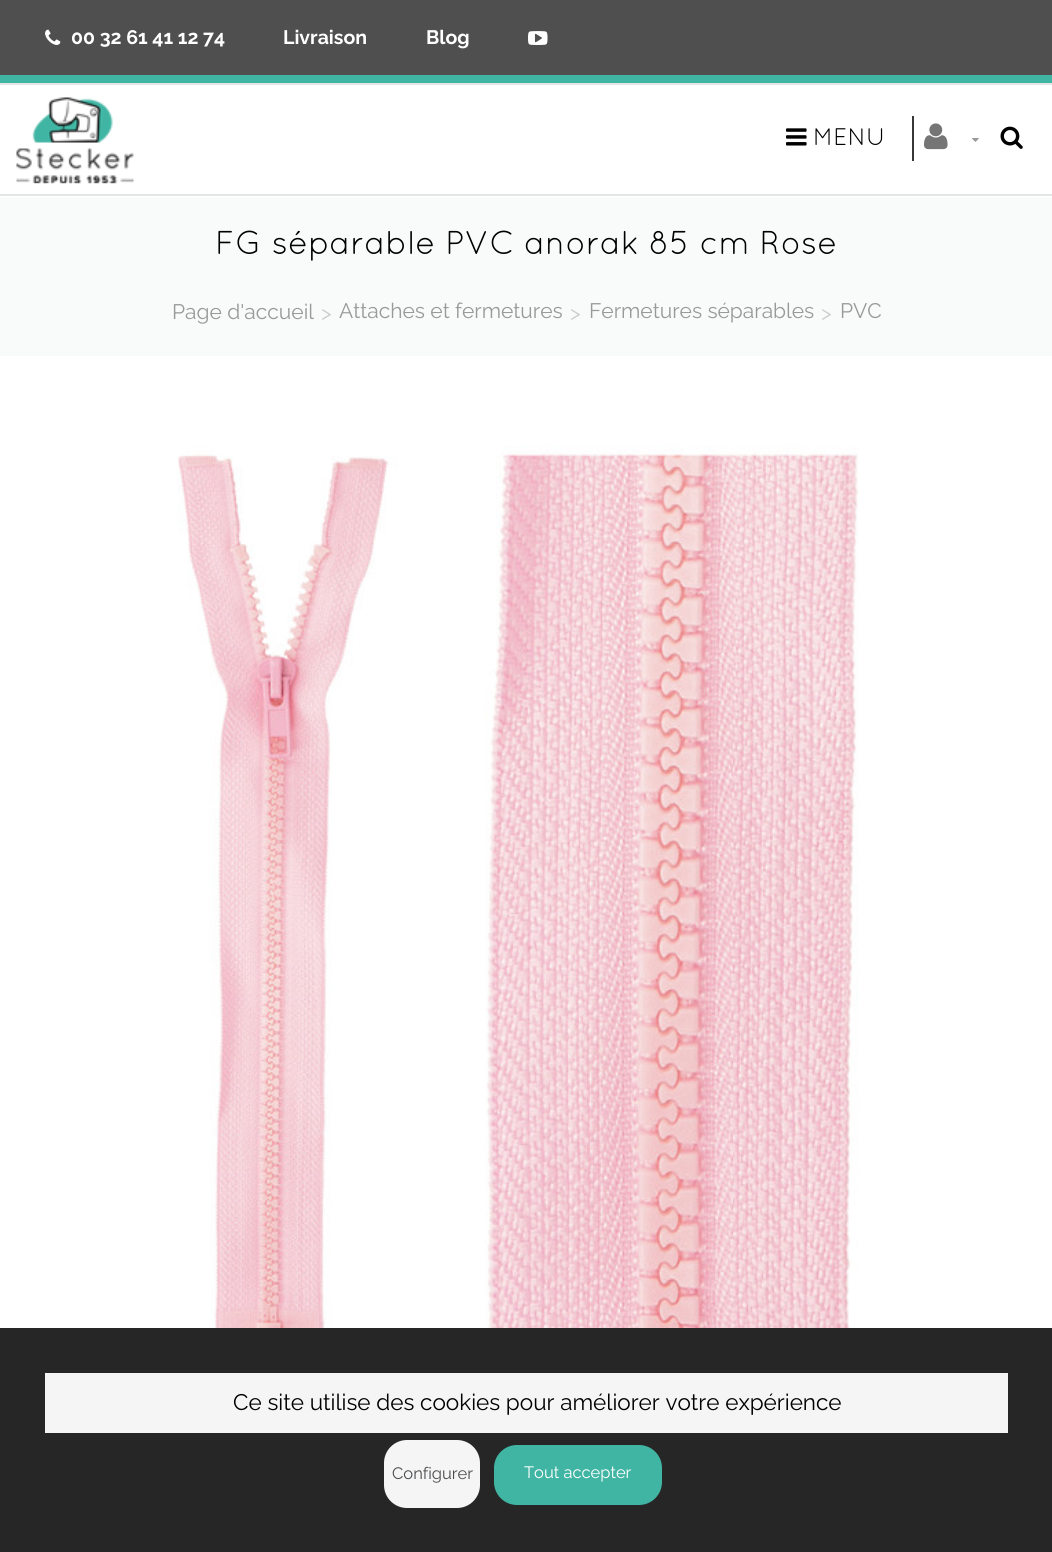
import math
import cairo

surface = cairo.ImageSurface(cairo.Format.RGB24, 1052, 1552)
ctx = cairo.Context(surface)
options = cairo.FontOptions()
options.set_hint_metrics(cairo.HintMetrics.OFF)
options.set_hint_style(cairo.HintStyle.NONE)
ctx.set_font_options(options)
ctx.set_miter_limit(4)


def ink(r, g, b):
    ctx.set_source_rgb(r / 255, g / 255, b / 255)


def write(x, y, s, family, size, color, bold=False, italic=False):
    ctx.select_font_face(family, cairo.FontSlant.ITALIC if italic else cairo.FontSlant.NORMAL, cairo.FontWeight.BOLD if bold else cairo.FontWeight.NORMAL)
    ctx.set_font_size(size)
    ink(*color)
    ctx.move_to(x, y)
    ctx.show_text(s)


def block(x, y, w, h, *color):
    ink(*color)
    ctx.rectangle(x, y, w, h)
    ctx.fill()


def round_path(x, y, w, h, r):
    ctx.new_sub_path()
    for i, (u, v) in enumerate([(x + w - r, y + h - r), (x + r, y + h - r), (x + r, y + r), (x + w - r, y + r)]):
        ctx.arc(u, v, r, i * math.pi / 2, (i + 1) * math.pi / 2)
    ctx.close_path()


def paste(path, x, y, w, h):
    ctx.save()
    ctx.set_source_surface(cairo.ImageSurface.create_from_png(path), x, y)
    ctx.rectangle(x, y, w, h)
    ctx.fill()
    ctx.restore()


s1 = dict(family="Raleway", size=19.5, color=(255, 255, 255), bold=True)
s2 = dict(family="Quicksand", size=24, color=(0, 0, 0))
s3 = dict(family="Quicksand", size=33, color=(0, 0, 0))
s4 = dict(family="Raleway", size=21, color=(153, 153, 153))
s5 = dict(family="Raleway", size=21, color=(204, 204, 204))
s6 = dict(family="Raleway", size=22.5, color=(0, 0, 0))
s7 = dict(family="Raleway", size=16.5, color=(76, 77, 79))
s8 = dict(family="Raleway", size=16.5, color=(255, 255, 255))

ink(255, 255, 255)
ctx.paint()
block(0, 0, 1052, 75, 79, 79, 79)
block(0, 75, 1052, 8, 65, 181, 163)
paste("pic1.png", 45, 29, 16, 16)
write(71, 44, "00 32 61 41 12 74", **s1)
write(283, 44, "Livraison", **s1)
write(426, 44, "Blog", **s1)
paste("pic2.png", 528, 31, 20, 14)
block(0, 83, 1052, 2, 227, 230, 229)
block(0, 194, 1052, 2, 227, 230, 229)
paste("pic3.png", 16, 97, 118, 87)
paste("pic4.png", 786, 128, 21, 18)
write(813, 145, "MENU", **s2)
block(912, 116, 2, 45, 56, 56, 56)
paste("pic5.png", 924, 123, 24, 27)
paste("pic6.png", 972, 138, 7, 4)
paste("pic7.png", 1000, 126, 23, 23)
block(0, 197, 1052, 159, 249, 250, 250)
write(215, 254, "FG séparable PVC anorak 85 cm Rose", **s3)
write(172, 319, "Page d'accueil", **s4)
write(321, 320, ">", **s5)
write(339, 318, "Attaches et fermetures", **s4)
write(570, 320, ">", **s5)
write(589, 318, "Fermetures séparables", **s4)
write(821, 320, ">", **s5)
write(840, 318, "PVC", **s4)
paste("pic8.png", 177, 445, 682, 883)
block(0, 1328, 1052, 224, 38, 38, 38)
block(45, 1373, 963, 60, 245, 245, 245)
write(233, 1410, "Ce site utilise des cookies pour améliorer votre expérience", **s6)
ink(245, 245, 245)
round_path(384, 1440, 96, 68, 23)
ctx.fill()
write(392, 1479, "Configurer", **s7)
ink(65, 181, 163)
round_path(494, 1445, 168, 60, 23)
ctx.fill()
write(524, 1478, "Tout accepter", **s8)
surface.write_to_png("screenshot.png")
